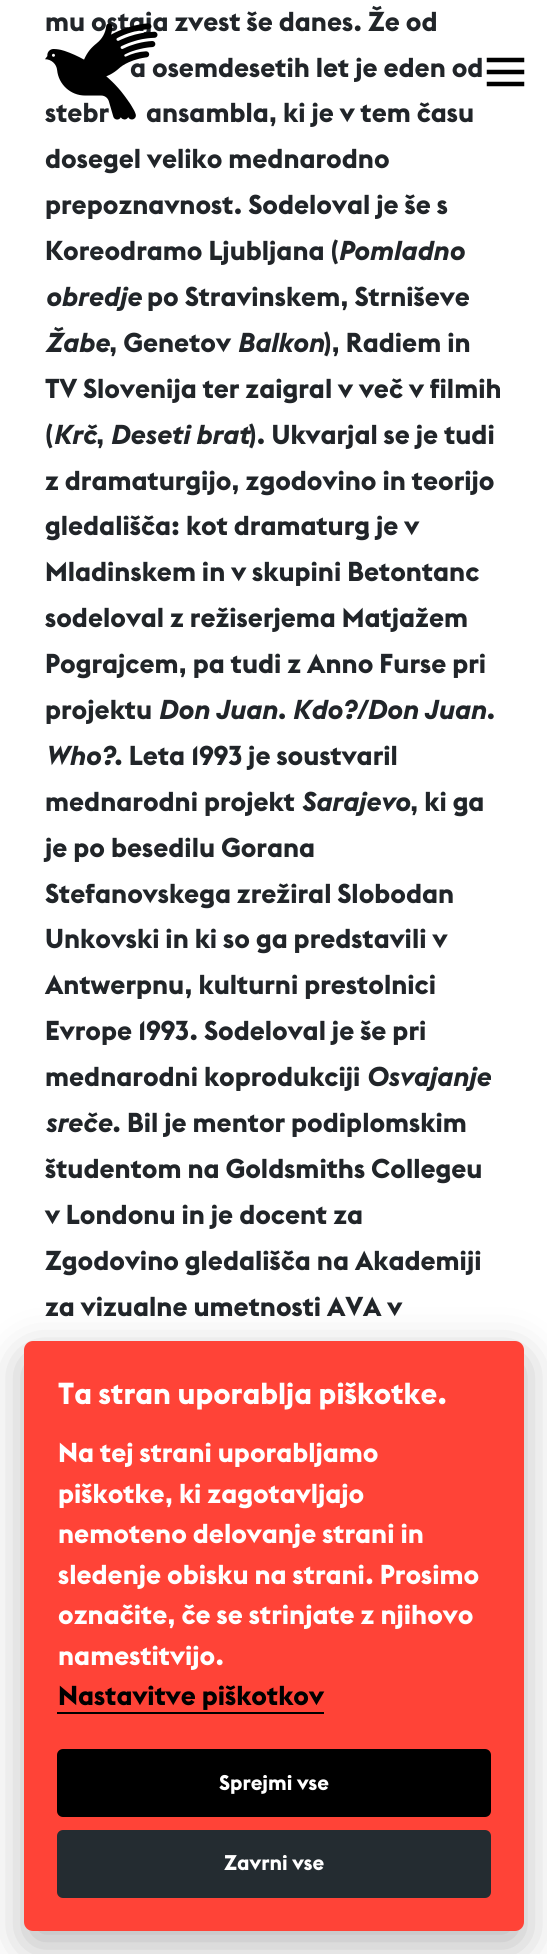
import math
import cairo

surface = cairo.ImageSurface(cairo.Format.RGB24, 547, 1954)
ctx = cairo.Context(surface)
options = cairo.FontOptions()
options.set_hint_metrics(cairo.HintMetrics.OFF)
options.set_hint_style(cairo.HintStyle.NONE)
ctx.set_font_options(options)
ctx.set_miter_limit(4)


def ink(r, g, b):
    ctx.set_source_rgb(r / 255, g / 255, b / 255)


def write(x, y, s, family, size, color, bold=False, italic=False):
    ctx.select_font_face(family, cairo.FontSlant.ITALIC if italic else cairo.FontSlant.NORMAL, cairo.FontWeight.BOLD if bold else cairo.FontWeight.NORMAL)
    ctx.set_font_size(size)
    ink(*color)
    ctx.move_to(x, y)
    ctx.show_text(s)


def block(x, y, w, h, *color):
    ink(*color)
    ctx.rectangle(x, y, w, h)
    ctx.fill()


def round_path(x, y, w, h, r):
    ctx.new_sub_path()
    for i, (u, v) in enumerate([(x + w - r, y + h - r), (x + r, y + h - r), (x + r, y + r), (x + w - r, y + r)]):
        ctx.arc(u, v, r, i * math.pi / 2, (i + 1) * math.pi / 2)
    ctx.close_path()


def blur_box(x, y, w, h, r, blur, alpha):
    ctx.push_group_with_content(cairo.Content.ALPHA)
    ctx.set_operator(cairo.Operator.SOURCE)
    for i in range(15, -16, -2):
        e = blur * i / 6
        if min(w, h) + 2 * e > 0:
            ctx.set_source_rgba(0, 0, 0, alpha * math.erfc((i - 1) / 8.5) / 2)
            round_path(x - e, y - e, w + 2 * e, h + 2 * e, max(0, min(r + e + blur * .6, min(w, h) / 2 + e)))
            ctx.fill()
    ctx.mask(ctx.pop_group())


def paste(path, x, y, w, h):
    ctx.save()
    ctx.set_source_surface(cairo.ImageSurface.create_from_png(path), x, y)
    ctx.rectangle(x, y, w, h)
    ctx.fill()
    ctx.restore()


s1 = dict(family="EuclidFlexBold", size=27, color=(33, 37, 41), bold=True)
s2 = dict(family="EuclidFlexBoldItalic", size=27, color=(33, 37, 41), bold=True)
s3 = dict(family="EuclidFlexBold", size=30, color=(255, 255, 255), bold=True)
s4 = dict(family="EuclidFlexBold", size=27, color=(255, 255, 255), bold=True)
s5 = dict(family="EuclidFlexBold", size=27, color=(0, 0, 0), bold=True)
s6 = dict(family="EuclidFlexBold", size=21, color=(255, 255, 255), bold=True)

ink(255, 255, 255)
ctx.paint()
write(45, 31, "mu ostaja zvest še danes. Že od", **s1)
write(130, 77, "a osemdesetih let je eden od", **s1)
write(45, 122, "stebr", **s1)
write(146, 122, "ansambla, ki je v tem času", **s1)
write(45, 168, "dosegel veliko mednarodno", **s1)
write(45, 214, "prepoznavnost. Sodeloval je še s", **s1)
write(45, 260, "Koreodramo Ljubljana (", **s1)
write(338, 260, "Pomladno", **s2)
write(45, 306, "obredje", **s2)
write(147, 306, "po Stravinskem, Strniševe", **s1)
write(45, 352, "Žabe", **s2)
write(109, 352, ", Genetov", **s1)
write(237, 352, "Balkon", **s2)
write(324, 352, "), Radiem in", **s1)
write(45, 398, "TV Slovenija ter zaigral v več v filmih", **s1)
write(45, 444, "(", **s1)
write(53, 444, "Krč", **s2)
write(96, 444, ",", **s1)
write(110, 444, "Deseti brat", **s2)
write(249, 444, "). Ukvarjal se je tudi", **s1)
write(45, 490, "z dramaturgijo, zgodovino in teorijo", **s1)
write(45, 535, "gledališča: kot dramaturg je v", **s1)
write(45, 581, "Mladinskem in v skupini Betontanc", **s1)
write(45, 627, "sodeloval z režiserjema Matjažem", **s1)
write(45, 673, "Pograjcem, pa tudi z Anno Furse pri", **s1)
write(45, 719, "projektu", **s1)
write(158, 719, "Don Juan. Kdo?/Don Juan.", **s2)
write(45, 765, "Who?", **s2)
write(114, 765, ". Leta 1993 je soustvaril", **s1)
write(45, 811, "mednarodni projekt", **s1)
write(301, 811, "Sarajevo", **s2)
write(410, 811, ", ki ga", **s1)
write(45, 857, "je po besedilu Gorana", **s1)
write(45, 903, "Stefanovskega zrežiral Slobodan", **s1)
write(45, 948, "Unkovski in ki so ga predstavili v", **s1)
write(45, 994, "Antwerpnu, kulturni prestolnici", **s1)
write(45, 1040, "Evrope 1993. Sodeloval je še pri", **s1)
write(45, 1086, "mednarodni koprodukciji", **s1)
write(366, 1086, "Osvajanje", **s2)
write(45, 1132, "sreče.", **s2)
write(127, 1132, "Bil je mentor podiplomskim", **s1)
write(45, 1178, "študentom na Goldsmiths Collegeu", **s1)
write(45, 1224, "v Londonu in je docent za", **s1)
write(45, 1270, "Zgodovino gledališča na Akademiji", **s1)
write(45, 1316, "za vizualne umetnosti AVA v", **s1)
paste("pic1.png", 45, 23, 113, 97)
ctx.new_path()
ctx.move_to(489, 60)
ctx.line_to(522, 60)
ctx.move_to(489, 72)
ctx.line_to(522, 72)
ctx.move_to(489, 84)
ctx.line_to(522, 84)
ink(0, 0, 0)
ctx.set_line_width(4.5)
ctx.set_line_cap(cairo.LineCap.SQUARE)
ctx.stroke()
ink(2, 2, 3)
blur_box(24, 1356, 500, 590, 9, 22.5, 0.28)
ink(255, 67, 55)
round_path(24, 1341, 500, 590, 9)
ctx.fill()
write(58, 1404, "Ta stran uporablja piškotke.", **s3)
write(58, 1462, "Na tej strani uporabljamo", **s4)
write(58, 1503, "piškotke, ki zagotavljajo", **s4)
write(58, 1543, "nemoteno delovanje strani in", **s4)
write(58, 1584, "sledenje obisku na strani. Prosimo", **s4)
write(58, 1624, "označite, če se strinjate z njihovo", **s4)
write(58, 1665, "namestitvijo.", **s4)
block(57, 1712, 267, 2, 0, 0, 0)
write(58, 1705, "Nastavitve piškotkov", **s5)
round_path(57, 1749, 434, 68, 6)
ctx.fill()
write(219, 1790, "Sprejmi vse", **s6)
ink(36, 44, 49)
round_path(57, 1830, 434, 68, 6)
ctx.fill()
write(224, 1870, "Zavrni vse", **s6)
surface.write_to_png("screenshot.png")
